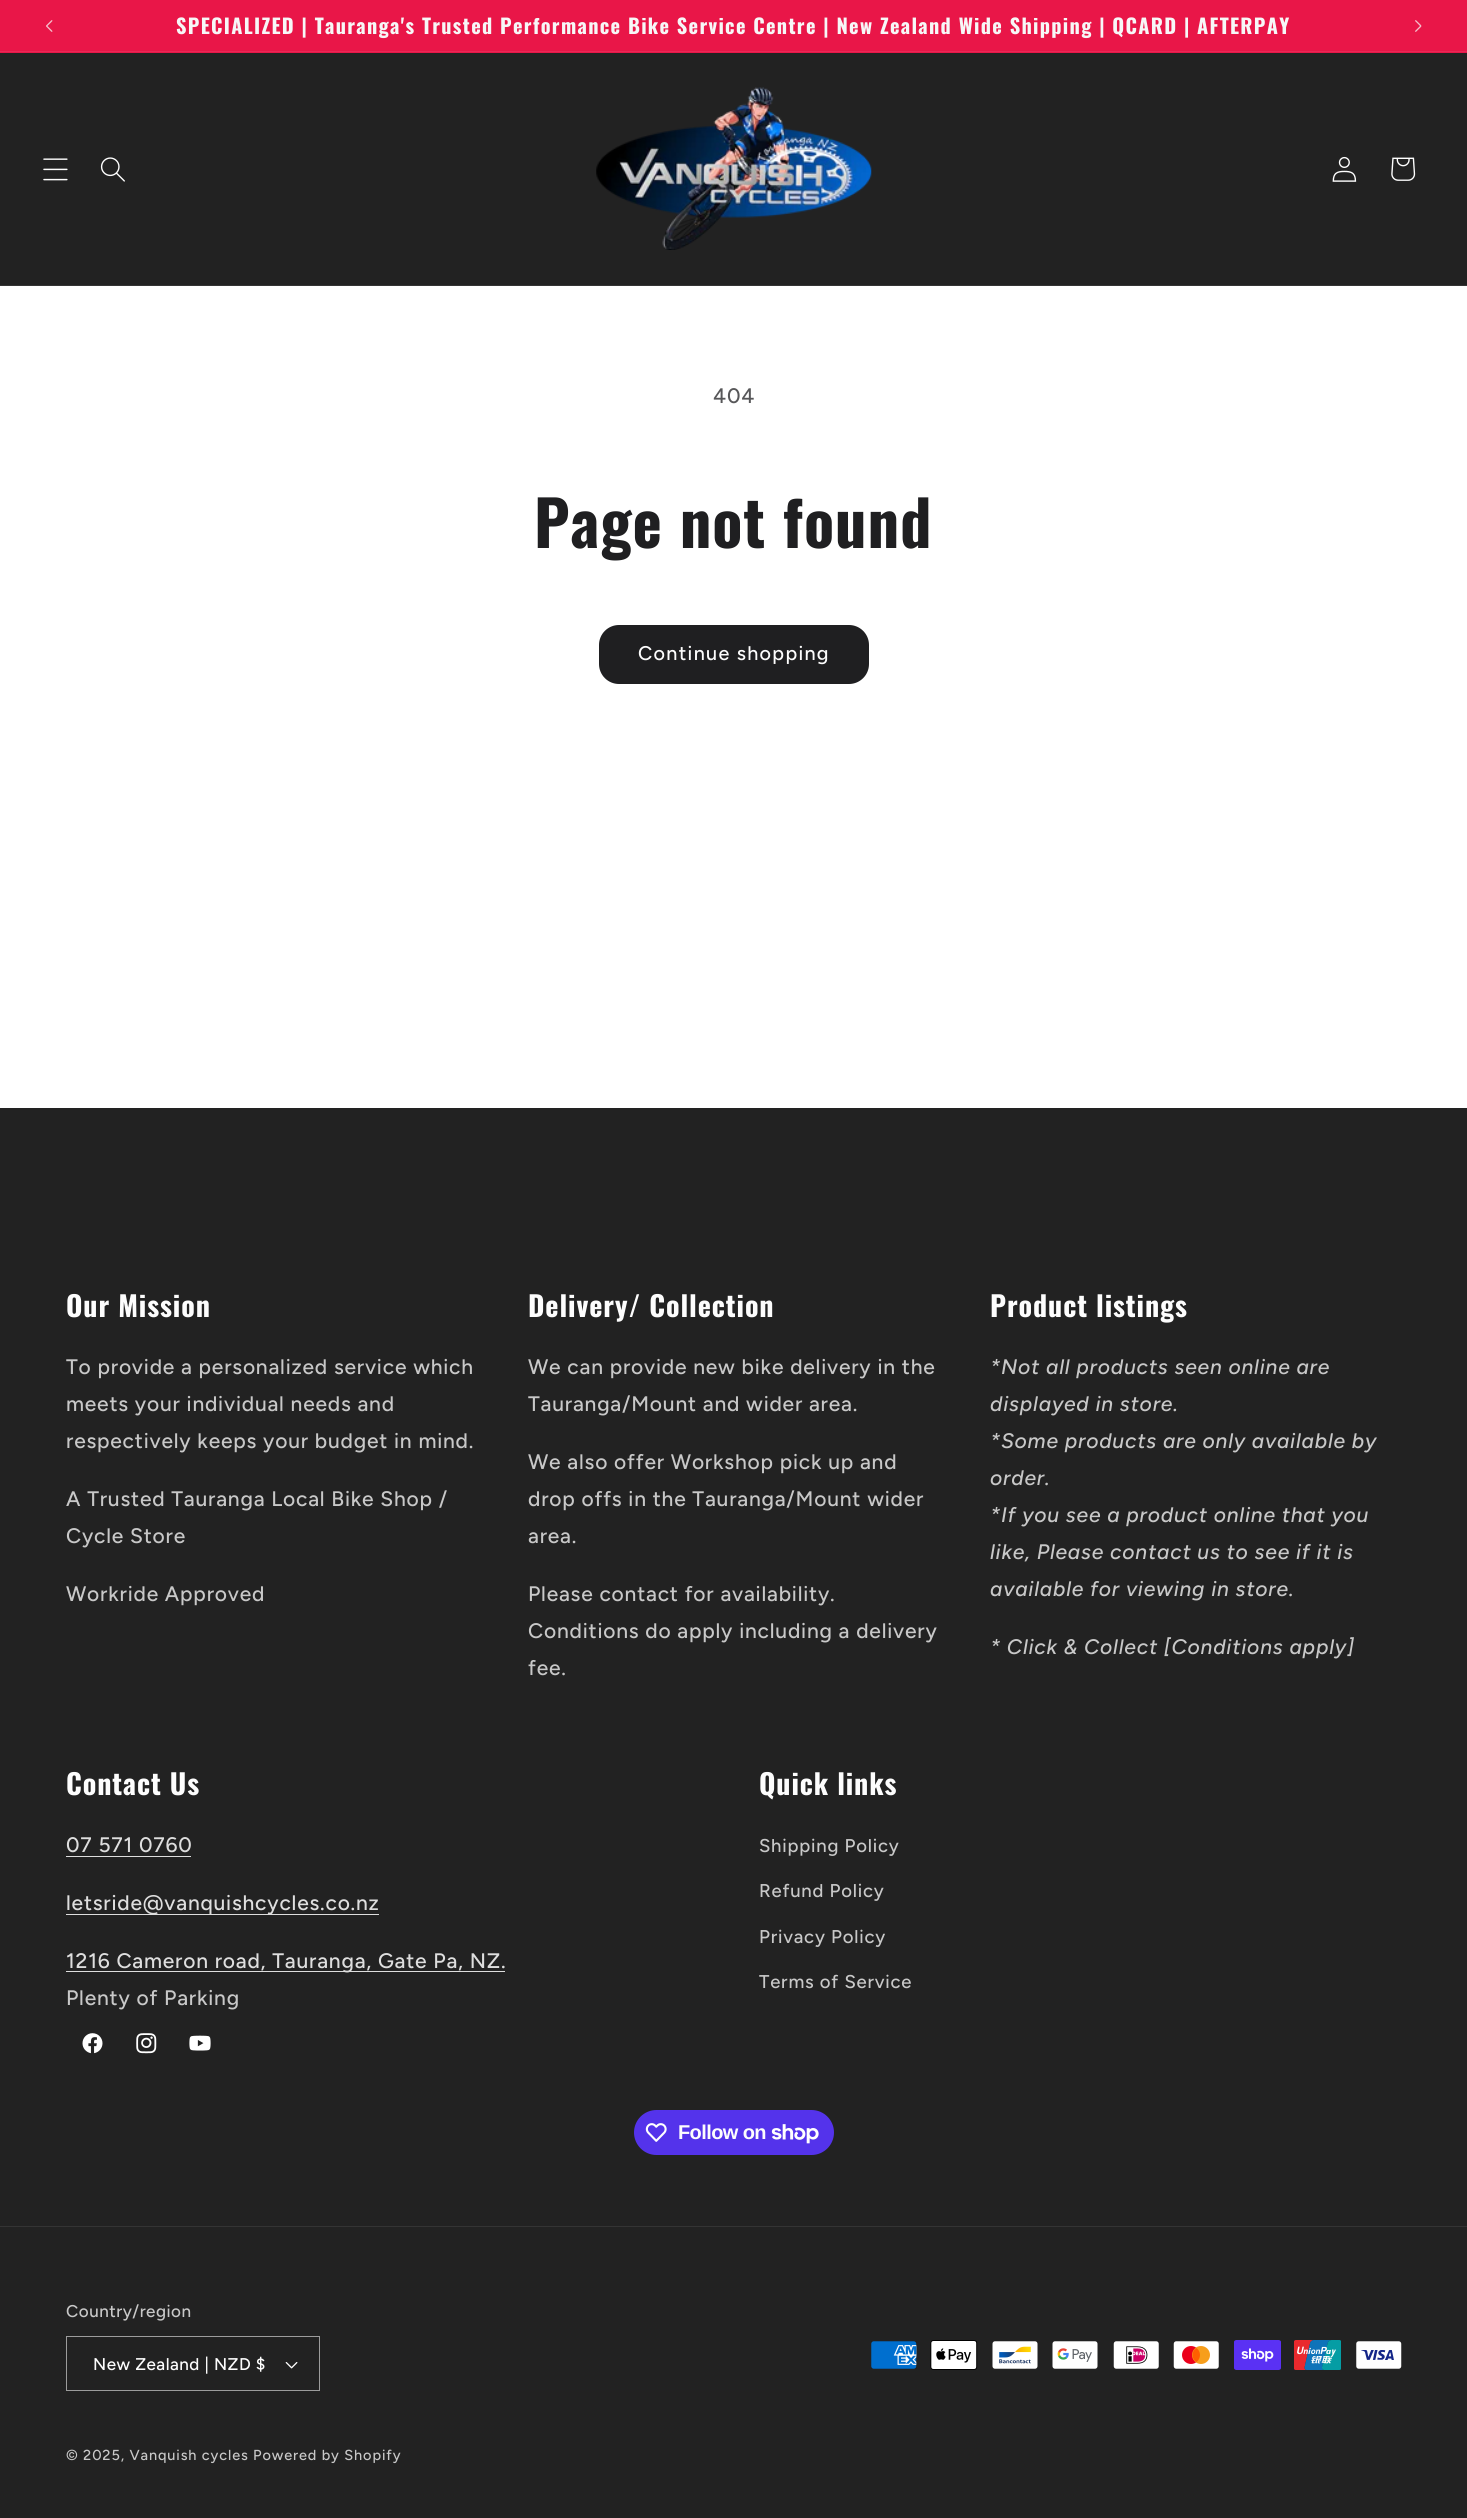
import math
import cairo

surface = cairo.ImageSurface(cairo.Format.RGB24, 1467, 2518)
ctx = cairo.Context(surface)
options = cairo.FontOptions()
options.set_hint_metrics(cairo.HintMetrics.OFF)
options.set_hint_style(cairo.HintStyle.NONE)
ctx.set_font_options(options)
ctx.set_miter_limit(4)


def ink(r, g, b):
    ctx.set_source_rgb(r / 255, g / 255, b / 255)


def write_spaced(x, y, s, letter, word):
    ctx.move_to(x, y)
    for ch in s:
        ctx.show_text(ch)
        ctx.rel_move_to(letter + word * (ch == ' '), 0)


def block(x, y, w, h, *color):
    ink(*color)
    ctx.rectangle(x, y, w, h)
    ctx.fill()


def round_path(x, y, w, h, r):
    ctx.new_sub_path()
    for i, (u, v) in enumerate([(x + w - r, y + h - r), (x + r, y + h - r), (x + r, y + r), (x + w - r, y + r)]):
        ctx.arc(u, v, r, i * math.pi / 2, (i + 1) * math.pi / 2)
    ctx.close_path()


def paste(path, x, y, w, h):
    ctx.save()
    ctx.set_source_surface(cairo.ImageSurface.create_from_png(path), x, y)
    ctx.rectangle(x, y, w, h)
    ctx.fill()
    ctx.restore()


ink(255, 255, 255)
ctx.paint()
block(0, 0, 1467, 53, 233, 22, 72)
block(0, 51, 1467, 1, 234, 40, 86)
paste("pic1.png", 46, 20, 7, 12)
ctx.select_font_face("Oswald", cairo.FontSlant.NORMAL, cairo.FontWeight.BOLD)
ctx.set_font_size(20.3)
ink(247, 247, 247)
write_spaced(176, 34, "SPECIALIZED | Tauranga's Trusted Performance Bike Service Centre | New Zealand Wide Shipping | QCARD | AFTERPAY", 1.31, 0)
paste("pic2.png", 1415, 20, 7, 12)
block(0, 53, 1467, 232, 34, 34, 34)
block(0, 285, 1467, 1, 52, 52, 52)
paste("pic3.png", 43, 158, 25, 23)
paste("pic4.png", 100, 157, 25, 25)
paste("pic5.png", 596, 87, 276, 163)
paste("pic6.png", 1332, 156, 25, 26)
paste("pic7.png", 1391, 157, 25, 24)
ctx.select_font_face("Figtree Medium")
ctx.set_font_size(21)
ink(87, 87, 89)
write_spaced(713, 403, "404", 0.8, 0)
ctx.select_font_face("Oswald", cairo.FontSlant.NORMAL, cairo.FontWeight.BOLD)
ctx.set_font_size(62.5)
ink(31, 31, 33)
write_spaced(534, 548, "Page not found", 0.9, 0)
round_path(599, 625, 270, 59, 20)
ctx.fill()
ctx.select_font_face("Figtree Medium")
ctx.set_font_size(19.75)
ink(253, 253, 253)
write_spaced(638, 660, "Continue shopping", 1.31, 0)
block(0, 1108, 1467, 1410, 34, 34, 34)
ctx.select_font_face("Oswald", cairo.FontSlant.NORMAL, cairo.FontWeight.BOLD)
ctx.set_font_size(28.1)
ink(253, 253, 253)
write_spaced(66, 1317, "Our Mission", 0.9, 0)
ctx.select_font_face("Figtree Medium")
ctx.set_font_size(21)
ink(200, 200, 200)
write_spaced(66, 1374, "To provide a personalized service which", 0.8, 0)
write_spaced(66, 1411, "meets your individual needs and", 0.8, 0)
write_spaced(66, 1448, "respectively keeps your budget in mind.", 0.8, 0)
write_spaced(66, 1506, "A Trusted Tauranga Local Bike Shop /", 0.8, 0)
write_spaced(66, 1543, "Cycle Store", 0.8, 0)
write_spaced(66, 1601, "Workride Approved", 0.8, 0)
ctx.select_font_face("Oswald", cairo.FontSlant.NORMAL, cairo.FontWeight.BOLD)
ctx.set_font_size(28.1)
ink(253, 253, 253)
write_spaced(528, 1317, "Delivery/ Collection", 0.9, 0)
ctx.select_font_face("Figtree Medium")
ctx.set_font_size(21)
ink(200, 200, 200)
write_spaced(528, 1374, "We can provide new bike delivery in the", 0.8, 0)
write_spaced(528, 1411, "Tauranga/Mount and wider area.", 0.8, 0)
write_spaced(528, 1469, "We also offer Workshop pick up and", 0.8, 0)
write_spaced(528, 1506, "drop offs in the Tauranga/Mount wider", 0.8, 0)
write_spaced(528, 1543, "area.", 0.8, 0)
write_spaced(528, 1601, "Please contact for availability.", 0.8, 0)
write_spaced(528, 1638, "Conditions do apply including a delivery", 0.8, 0)
write_spaced(528, 1675, "fee.", 0.8, 0)
ctx.select_font_face("Oswald", cairo.FontSlant.NORMAL, cairo.FontWeight.BOLD)
ctx.set_font_size(28.1)
ink(253, 253, 253)
write_spaced(990, 1317, "Product listings", 0.9, 0)
ctx.select_font_face("Figtree Medium", cairo.FontSlant.ITALIC)
ctx.set_font_size(21)
ink(200, 200, 200)
write_spaced(990, 1374, "*Not all products seen online are", 0.8, 0)
write_spaced(990, 1411, "displayed in store.", 0.8, 0)
write_spaced(990, 1448, "*Some products are only available by", 0.8, 0)
write_spaced(990, 1485, "order.", 0.8, 0)
write_spaced(990, 1522, "*If you see a product online that you", 0.8, 0)
write_spaced(990, 1559, "like, Please contact us to see if it is", 0.8, 0)
write_spaced(990, 1596, "available for viewing in store.", 0.8, 0)
write_spaced(990, 1654, "* Click & Collect [Conditions apply]", 0.8, 0)
ctx.select_font_face("Oswald", cairo.FontSlant.NORMAL, cairo.FontWeight.BOLD)
ctx.set_font_size(28.1)
ink(253, 253, 253)
write_spaced(66, 1795, "Contact Us", 0.9, 0)
ctx.select_font_face("Figtree Medium")
ctx.set_font_size(21)
ink(222, 222, 222)
write_spaced(66, 1852, "07 571 0760", 0.8, 0)
block(66, 1856, 125, 1, 222, 222, 222)
block(66, 1914, 313, 1, 222, 222, 222)
write_spaced(66, 1910, "letsride@vanquishcycles.co.nz", 0.8, 0)
block(66, 1971, 439, 1, 222, 222, 222)
write_spaced(66, 1968, "1216 Cameron road, Tauranga, Gate Pa, NZ.", 0.8, 0)
ink(200, 200, 200)
write_spaced(66, 2005, "Plenty of Parking", 0.8, 0)
paste("pic8.png", 82, 2033, 21, 21)
paste("pic9.png", 136, 2033, 21, 21)
paste("pic10.png", 189, 2035, 22, 16)
ctx.select_font_face("Oswald", cairo.FontSlant.NORMAL, cairo.FontWeight.BOLD)
ctx.set_font_size(28.1)
ink(253, 253, 253)
write_spaced(759, 1795, "Quick links", 0.9, 0)
ctx.select_font_face("Figtree Medium")
ctx.set_font_size(18.5)
ink(200, 200, 200)
write_spaced(759, 1852, "Shipping Policy", 0.8, 0)
write_spaced(759, 1897, "Refund Policy", 0.8, 0)
write_spaced(759, 1943, "Privacy Policy", 0.8, 0)
write_spaced(759, 1988, "Terms of Service", 0.8, 0)
ink(84, 51, 235)
round_path(634, 2110, 200, 45, 22.5)
ctx.fill()
paste("pic11.png", 645, 2123, 22, 19)
ctx.select_font_face("Liberation Sans", cairo.FontSlant.NORMAL, cairo.FontWeight.BOLD)
ctx.set_font_size(20)
ink(253, 253, 253)
write_spaced(678, 2139, "Follow on", -0.6, 0)
paste("pic12.png", 771, 2124, 48, 20)
block(0, 2226, 1467, 1, 52, 52, 52)
ctx.select_font_face("Figtree Medium")
ctx.set_font_size(17)
ink(200, 200, 200)
write_spaced(66, 2317, "Country/region", 0.5, 0)
paste("pic13.png", 285, 2362, 13, 7)
ctx.rectangle(66.5, 2336.5, 253, 54)
ink(156, 156, 156)
ctx.set_line_width(1)
ctx.stroke()
ink(253, 253, 253)
write_spaced(93, 2370, "New Zealand | NZD $", 0.5, 0)
paste("pic14.png", 871, 2341, 46, 28)
paste("pic15.png", 930, 2340, 48, 30)
paste("pic16.png", 992, 2341, 46, 28)
paste("pic17.png", 1052, 2341, 46, 28)
paste("pic18.png", 1113, 2341, 46, 28)
paste("pic19.png", 1173, 2341, 46, 28)
paste("pic20.png", 1234, 2340, 47, 30)
paste("pic21.png", 1294, 2340, 47, 30)
paste("pic22.png", 1356, 2341, 46, 28)
ctx.set_font_size(14.5)
ink(200, 200, 200)
write_spaced(66, 2460, "© 2025, Vanquish cycles", 0.9, 0)
write_spaced(253, 2460, "Powered by Shopify", 0.9, 0)
surface.write_to_png("screenshot.png")
